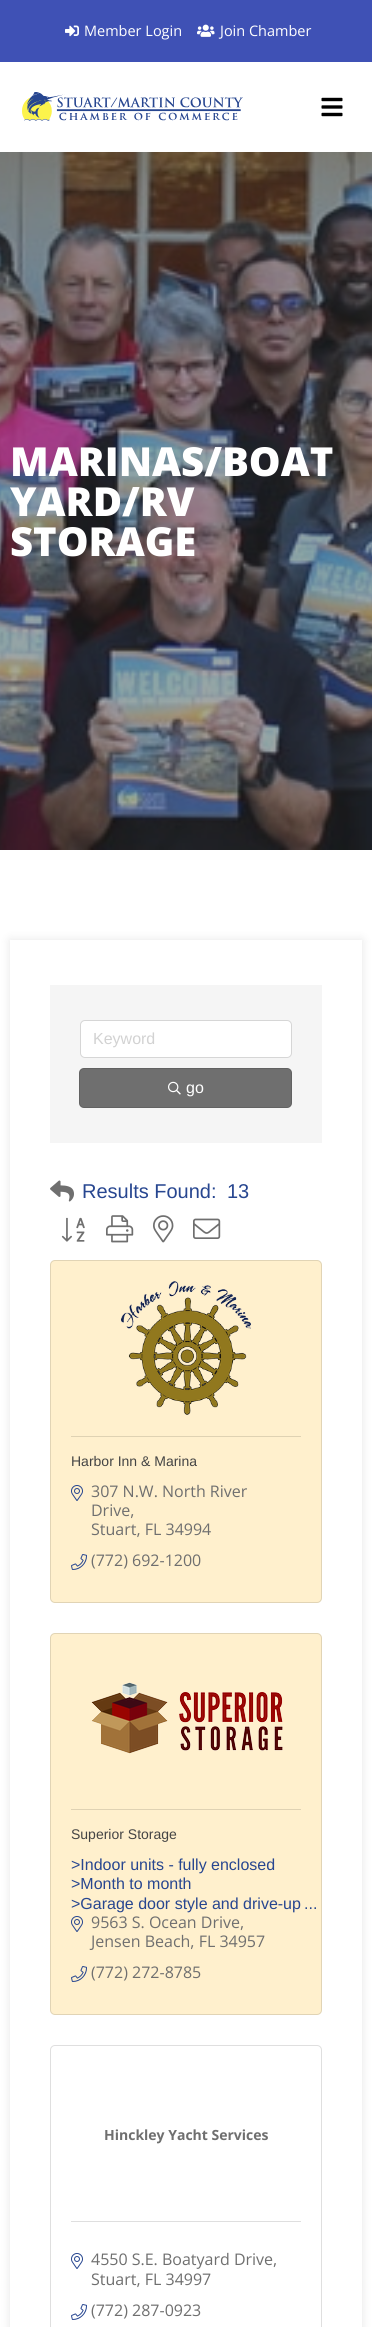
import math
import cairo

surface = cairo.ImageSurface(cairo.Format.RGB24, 372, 2327)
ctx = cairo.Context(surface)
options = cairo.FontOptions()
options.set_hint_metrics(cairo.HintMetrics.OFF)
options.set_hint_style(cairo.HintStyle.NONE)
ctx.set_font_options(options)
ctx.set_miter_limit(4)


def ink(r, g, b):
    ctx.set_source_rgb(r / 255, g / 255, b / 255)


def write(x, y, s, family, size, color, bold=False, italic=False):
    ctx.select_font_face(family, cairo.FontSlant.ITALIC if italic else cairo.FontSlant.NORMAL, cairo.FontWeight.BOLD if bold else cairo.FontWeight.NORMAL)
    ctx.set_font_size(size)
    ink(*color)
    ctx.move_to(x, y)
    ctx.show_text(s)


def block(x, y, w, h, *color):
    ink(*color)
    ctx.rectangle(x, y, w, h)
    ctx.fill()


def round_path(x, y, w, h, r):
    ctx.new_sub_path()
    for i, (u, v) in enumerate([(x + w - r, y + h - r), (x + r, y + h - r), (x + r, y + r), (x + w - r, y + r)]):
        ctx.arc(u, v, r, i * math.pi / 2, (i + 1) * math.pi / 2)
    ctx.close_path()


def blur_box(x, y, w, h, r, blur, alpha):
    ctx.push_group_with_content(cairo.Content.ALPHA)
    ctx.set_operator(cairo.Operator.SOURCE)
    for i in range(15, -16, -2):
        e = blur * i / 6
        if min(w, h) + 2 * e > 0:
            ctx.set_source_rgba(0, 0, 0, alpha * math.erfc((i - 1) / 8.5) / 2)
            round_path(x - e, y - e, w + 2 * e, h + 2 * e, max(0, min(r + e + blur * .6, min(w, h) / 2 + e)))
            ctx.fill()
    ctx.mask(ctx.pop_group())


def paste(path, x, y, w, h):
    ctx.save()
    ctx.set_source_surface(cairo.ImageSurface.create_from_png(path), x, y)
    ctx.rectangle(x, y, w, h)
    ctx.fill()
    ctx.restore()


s1 = dict(family="Open Sans", size=14.5, color=(255, 255, 255))
s2 = dict(family="Open Sans ExtraBold", size=40, color=(255, 255, 255))
s3 = dict(family="Liberation Sans", size=16, color=(210, 210, 210))
s4 = dict(family="Liberation Sans", size=16, color=(255, 255, 255))
s5 = dict(family="Liberation Sans", size=20, color=(39, 70, 144))
s6 = dict(family="Liberation Sans", size=14, color=(68, 68, 68))
s7 = dict(family="Open Sans", size=16, color=(111, 111, 111))
s8 = dict(family="Liberation Sans", size=16, color=(39, 70, 144))
s9 = dict(family="Open Sans", size=14, color=(111, 111, 111), bold=True)

ink(255, 255, 255)
ctx.paint()
block(0, 0, 372, 62, 63, 81, 181)
paste("pic1.png", 65, 25, 14, 12)
write(84, 36, "Member Login", **s1)
paste("pic2.png", 197, 24, 18, 13)
write(220, 36, "Join Chamber", **s1)
paste("pic3.png", 22, 92, 221, 29)
paste("pic4.png", 321, 97, 22, 20)
paste("pic5.png", 0, 152, 372, 698)
write(10, 476, "MARINAS/BOAT", **s2)
write(10, 516, "YARD/RV", **s2)
write(10, 556, "STORAGE", **s2)
ctx.save()
ctx.set_fill_rule(cairo.FillRule.EVEN_ODD)
ctx.new_path()
ctx.move_to(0, 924)
ctx.line_to(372, 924)
ctx.line_to(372, 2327)
ctx.line_to(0, 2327)
ctx.close_path()
ctx.move_to(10, 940)
ctx.line_to(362, 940)
ctx.line_to(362, 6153)
ctx.line_to(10, 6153)
ctx.close_path()
ctx.clip()
ink(0, 0, 0)
blur_box(10, 940, 352, 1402, 0, 5, 0.1)
ctx.restore()
block(50, 985, 272, 158, 245, 245, 245)
ink(255, 255, 255)
round_path(80.5, 1020.5, 211, 37, 4.5)
ctx.fill_preserve()
ink(214, 214, 214)
ctx.set_line_width(1)
ctx.stroke()
write(93, 1044, "Keyword", **s3)
ink(111, 111, 111)
round_path(79, 1068, 213, 40, 5)
ctx.fill()
round_path(79.5, 1068.5, 212, 39, 4.5)
ctx.set_source_rgba(0, 0, 0, 0.12)
ctx.stroke()
paste("pic6.png", 168, 1081, 13, 14)
write(186, 1093, "go", **s4)
paste("pic7.png", 50, 1180, 24, 22)
write(82, 1198, "Results Found:", **s5)
write(227, 1198, "13", **s5)
paste("pic8.png", 61, 1217, 24, 25)
paste("pic9.png", 106, 1215, 28, 28)
paste("pic10.png", 153, 1215, 21, 28)
paste("pic11.png", 193, 1218, 28, 21)
ink(255, 240, 205)
round_path(50, 1260, 272, 343, 5)
ctx.fill()
round_path(50.5, 1260.5, 271, 342, 4.5)
ctx.set_source_rgba(0, 0, 0, 0.12)
ctx.stroke()
paste("pic12.png", 121, 1281, 130, 134)
block(71, 1436, 230, 1, 223, 210, 179)
write(71, 1466, "Harbor Inn & Marina", **s6)
paste("pic13.png", 71, 1485, 12, 16)
write(91, 1497, "307 N.W. North River", **s7)
write(91, 1516, "Drive,", **s7)
write(91, 1535, "Stuart, FL 34994", **s7)
paste("pic14.png", 71, 1554, 16, 16)
write(91, 1566, "(772) 692-1200", **s7)
ink(255, 240, 205)
round_path(50, 1633, 272, 382, 5)
ctx.fill()
round_path(50.5, 1633.5, 271, 381, 4.5)
ctx.set_source_rgba(0, 0, 0, 0.12)
ctx.stroke()
paste("pic15.png", 91, 1682, 192, 72)
block(71, 1809, 230, 1, 223, 210, 179)
write(71, 1839, "Superior Storage", **s6)
write(71, 1870, ">Indoor units - fully enclosed", **s8)
write(71, 1889, ">Month to month", **s8)
write(71, 1909, ">Garage door style and drive-up", **s8)
write(304, 1909, "...", **s8)
paste("pic13.png", 71, 1916, 12, 16)
write(91, 1928, "9563 S. Ocean Drive,", **s7)
write(91, 1947, "Jensen Beach, FL 34957", **s7)
paste("pic14.png", 71, 1966, 16, 16)
write(91, 1978, "(772) 272-8785", **s7)
round_path(50.5, 2045.5, 271, 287, 4.5)
ink(223, 223, 223)
ctx.stroke()
write(104, 2140, "Hinckley Yacht Services", **s9)
block(71, 2221, 230, 1, 223, 223, 223)
paste("pic16.png", 71, 2253, 12, 16)
write(91, 2265, "4550 S.E. Boatyard Drive,", **s7)
write(91, 2285, "Stuart, FL 34997", **s7)
paste("pic17.png", 71, 2304, 16, 16)
write(91, 2316, "(772) 287-0923", **s7)
surface.write_to_png("screenshot.png")
